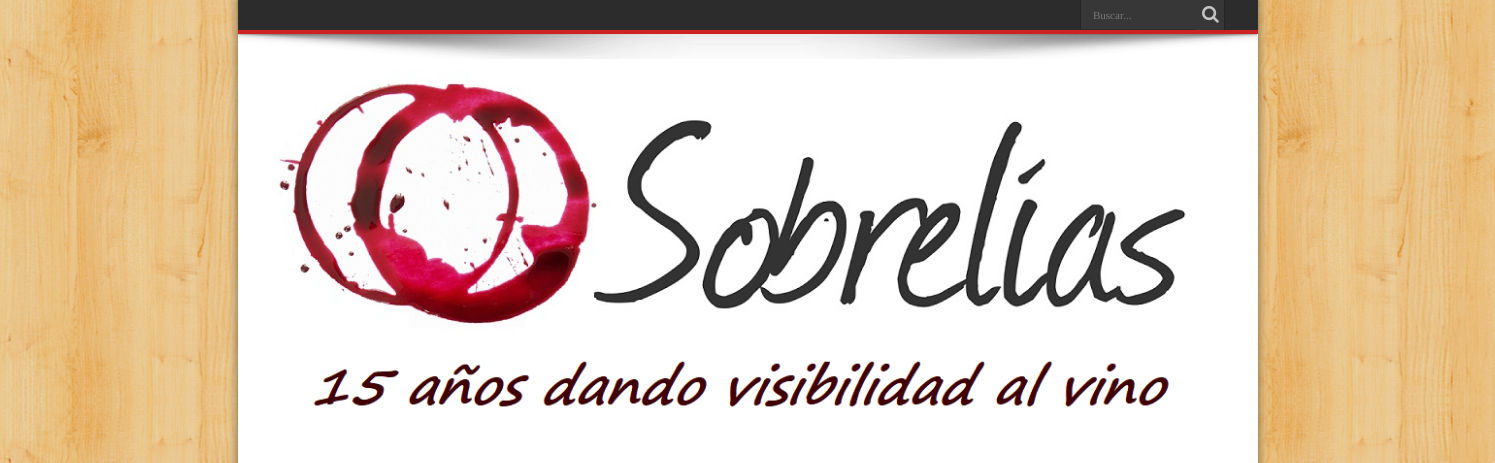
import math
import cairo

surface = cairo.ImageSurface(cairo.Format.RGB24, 1495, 463)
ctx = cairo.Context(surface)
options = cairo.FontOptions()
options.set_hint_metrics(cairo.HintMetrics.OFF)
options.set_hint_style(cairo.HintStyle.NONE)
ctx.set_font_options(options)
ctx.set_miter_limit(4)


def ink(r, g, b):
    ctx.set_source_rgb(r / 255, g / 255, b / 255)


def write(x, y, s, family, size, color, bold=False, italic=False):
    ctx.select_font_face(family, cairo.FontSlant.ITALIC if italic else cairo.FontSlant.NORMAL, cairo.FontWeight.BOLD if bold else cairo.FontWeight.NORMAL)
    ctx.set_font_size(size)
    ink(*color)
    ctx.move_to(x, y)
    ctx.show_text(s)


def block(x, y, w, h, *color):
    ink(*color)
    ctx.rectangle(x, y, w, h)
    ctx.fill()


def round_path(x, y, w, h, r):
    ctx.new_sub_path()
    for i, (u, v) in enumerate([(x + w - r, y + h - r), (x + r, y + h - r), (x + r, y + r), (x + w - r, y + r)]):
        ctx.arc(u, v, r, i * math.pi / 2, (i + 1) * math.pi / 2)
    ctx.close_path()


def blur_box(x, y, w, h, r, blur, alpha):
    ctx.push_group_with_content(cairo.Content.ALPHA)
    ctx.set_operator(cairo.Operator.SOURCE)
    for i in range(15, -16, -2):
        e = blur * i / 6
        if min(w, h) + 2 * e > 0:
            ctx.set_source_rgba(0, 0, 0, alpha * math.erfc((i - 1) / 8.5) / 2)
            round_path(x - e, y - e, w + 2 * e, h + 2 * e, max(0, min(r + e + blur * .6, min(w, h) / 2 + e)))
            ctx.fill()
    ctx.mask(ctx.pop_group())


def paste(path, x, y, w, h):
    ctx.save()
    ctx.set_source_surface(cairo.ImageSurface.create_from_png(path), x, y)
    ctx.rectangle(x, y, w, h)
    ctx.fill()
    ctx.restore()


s1 = dict(family="Liberation Serif", size=11, color=(120, 120, 120))

ink(255, 255, 255)
ctx.paint()
paste("pic1.png", 0, 0, 1495, 463)
ink(0, 0, 0)
blur_box(238, 0, 1020, 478, 0, 5, 0.5)
block(238, 34, 1020, 429, 255, 255, 255)
block(238, 0, 1020, 30, 44, 44, 44)
block(238, 30, 1020, 4, 205, 33, 34)
block(1081, 0, 114, 29, 55, 55, 55)
block(1080, 0, 1, 29, 37, 37, 37)
write(1093, 19, "Buscar...", **s1)
block(1195, 0, 29, 30, 55, 55, 55)
block(1224, 0, 1, 30, 37, 37, 37)
paste("pic2.png", 1202, 6, 17, 17)
paste("pic3.png", 238, 34, 1019, 25)
paste("pic4.png", 273, 59, 913, 348)
surface.write_to_png("screenshot.png")
